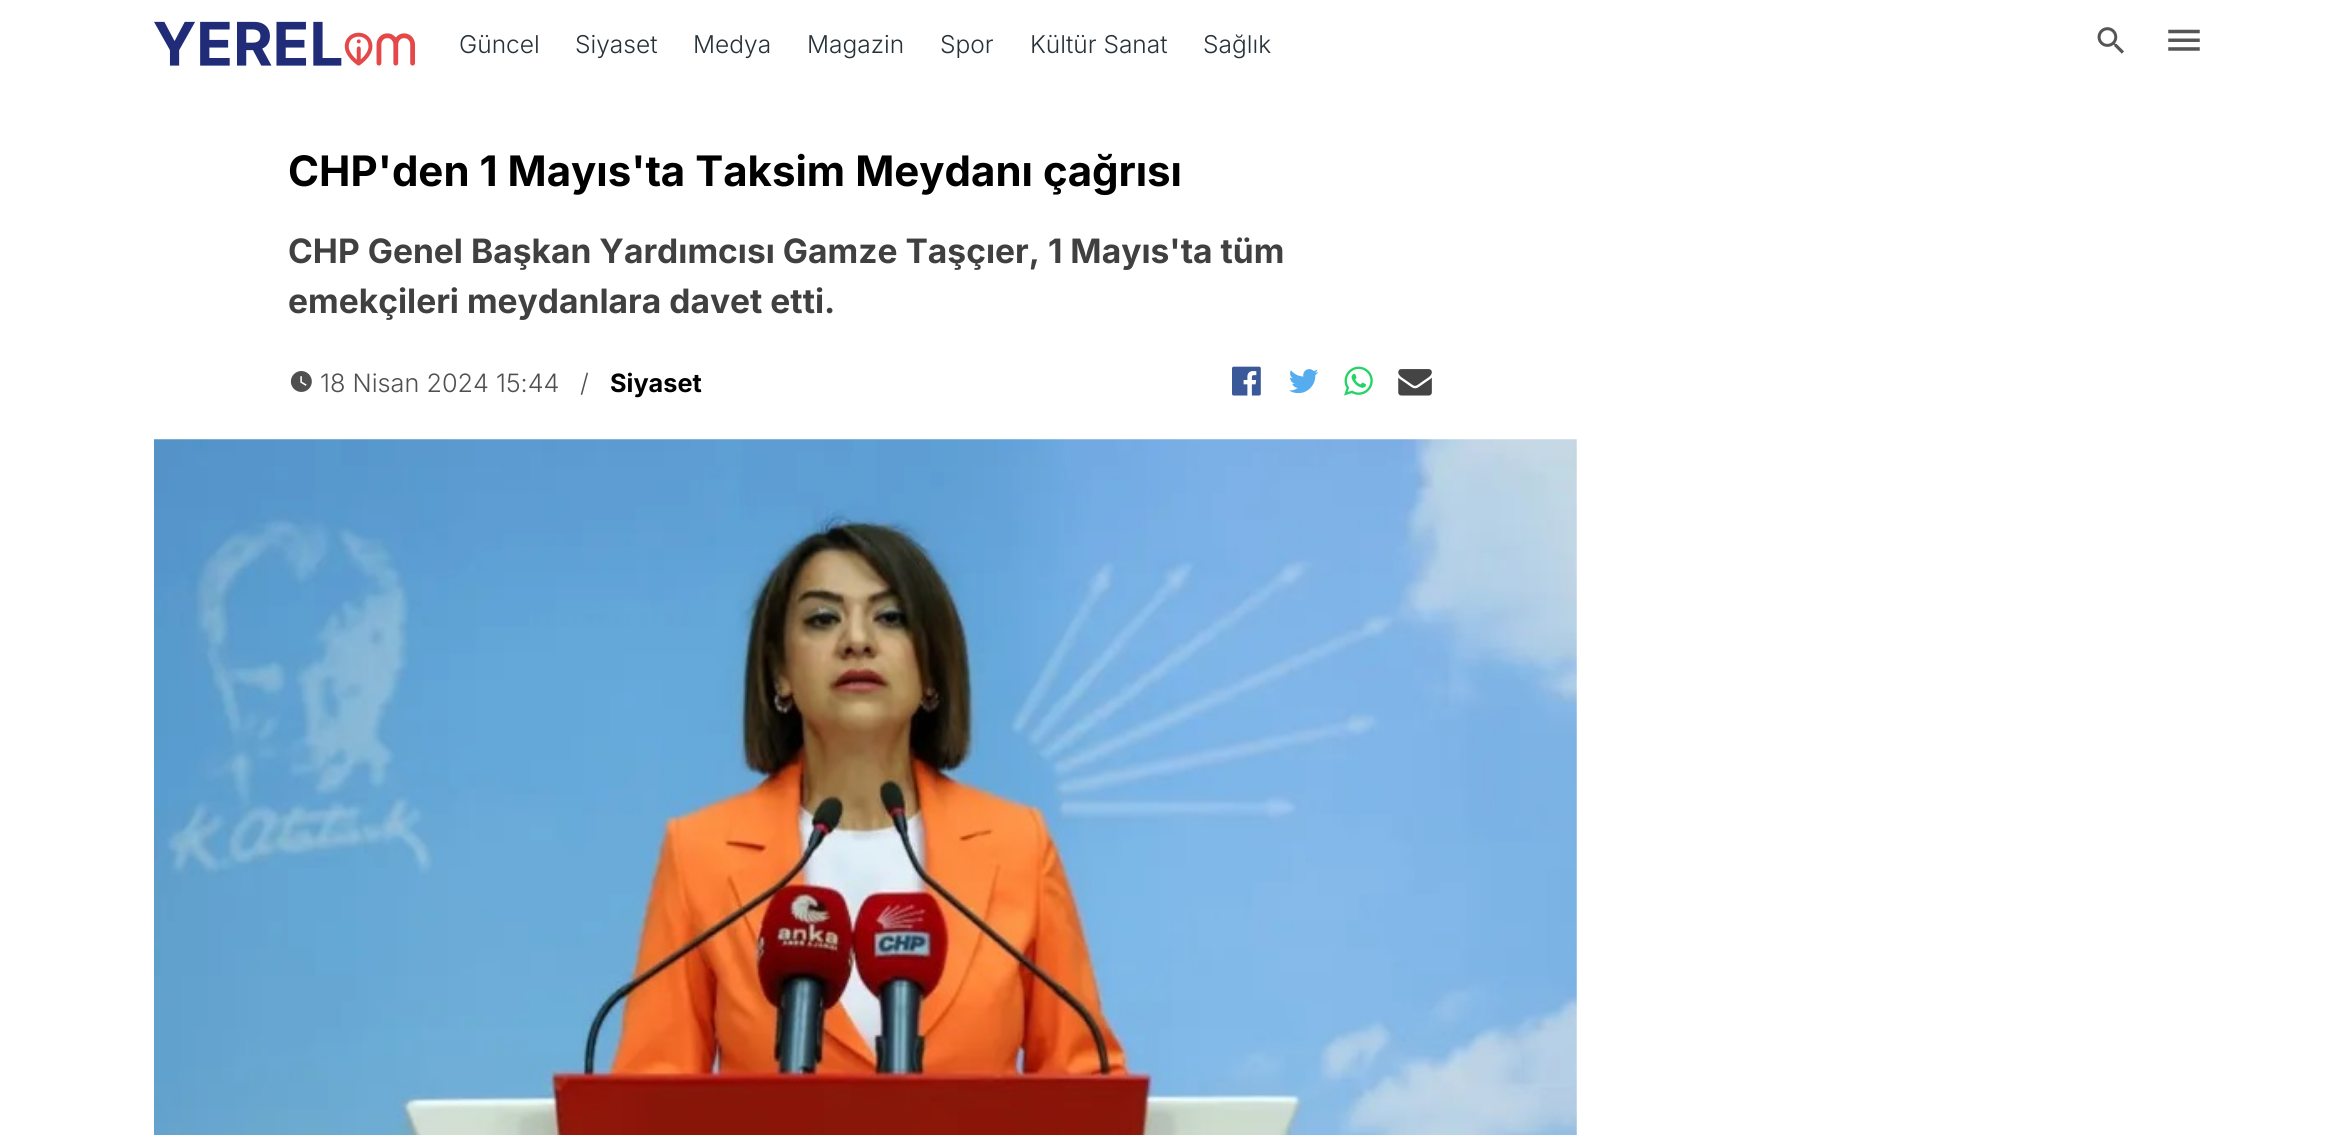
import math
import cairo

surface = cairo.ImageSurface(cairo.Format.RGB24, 2351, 1135)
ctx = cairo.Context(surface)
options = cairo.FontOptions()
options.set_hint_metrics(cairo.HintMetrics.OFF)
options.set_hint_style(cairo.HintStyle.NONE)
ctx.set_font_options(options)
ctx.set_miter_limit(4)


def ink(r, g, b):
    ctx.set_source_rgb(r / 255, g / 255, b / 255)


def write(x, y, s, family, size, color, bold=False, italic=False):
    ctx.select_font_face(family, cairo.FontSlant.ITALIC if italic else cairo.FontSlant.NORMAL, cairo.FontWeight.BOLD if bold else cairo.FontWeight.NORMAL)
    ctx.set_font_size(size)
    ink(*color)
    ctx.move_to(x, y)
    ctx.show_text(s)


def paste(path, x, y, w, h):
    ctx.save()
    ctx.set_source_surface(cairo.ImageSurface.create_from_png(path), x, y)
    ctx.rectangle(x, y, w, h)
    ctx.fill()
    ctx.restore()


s1 = dict(family="Inter Light", size=24.5, color=(38, 50, 56))
s2 = dict(family="Inter", size=42, color=(0, 0, 0), bold=True)
s3 = dict(family="Inter", size=33.6, color=(64, 64, 64), bold=True)
s4 = dict(family="Inter Light", size=25.25, color=(80, 80, 80))
s5 = dict(family="Inter", size=25.25, color=(0, 0, 0), bold=True)

ink(255, 255, 255)
ctx.paint()
paste("pic1.png", 154, 21, 262, 45)
write(459, 53, "Güncel", **s1)
write(575, 53, "Siyaset", **s1)
write(693, 53, "Medya", **s1)
write(807, 53, "Magazin", **s1)
write(940, 53, "Spor", **s1)
write(1030, 53, "Kültür Sanat", **s1)
write(1203, 53, "Sağlık", **s1)
paste("pic2.png", 2097, 27, 27, 27)
paste("pic3.png", 2168, 29, 32, 22)
write(288, 186, "CHP'den 1 Mayıs'ta Taksim Meydanı çağrısı", **s2)
write(288, 263, "CHP Genel Başkan Yardımcısı Gamze Taşçıer, 1 Mayıs'ta tüm", **s3)
write(288, 313, "emekçileri meydanlara davet etti.", **s3)
paste("pic4.png", 290, 371, 22, 21)
write(320, 392, "18 Nisan 2024 15:44", **s4)
write(580, 392, "/", **s4)
write(610, 392, "Siyaset", **s5)
paste("pic5.png", 1232, 366, 29, 30)
paste("pic6.png", 1289, 369, 30, 25)
paste("pic7.png", 1344, 366, 29, 30)
paste("pic8.png", 1398, 369, 34, 27)
paste("pic9.png", 154, 439, 1423, 696)
surface.write_to_png("screenshot.png")
